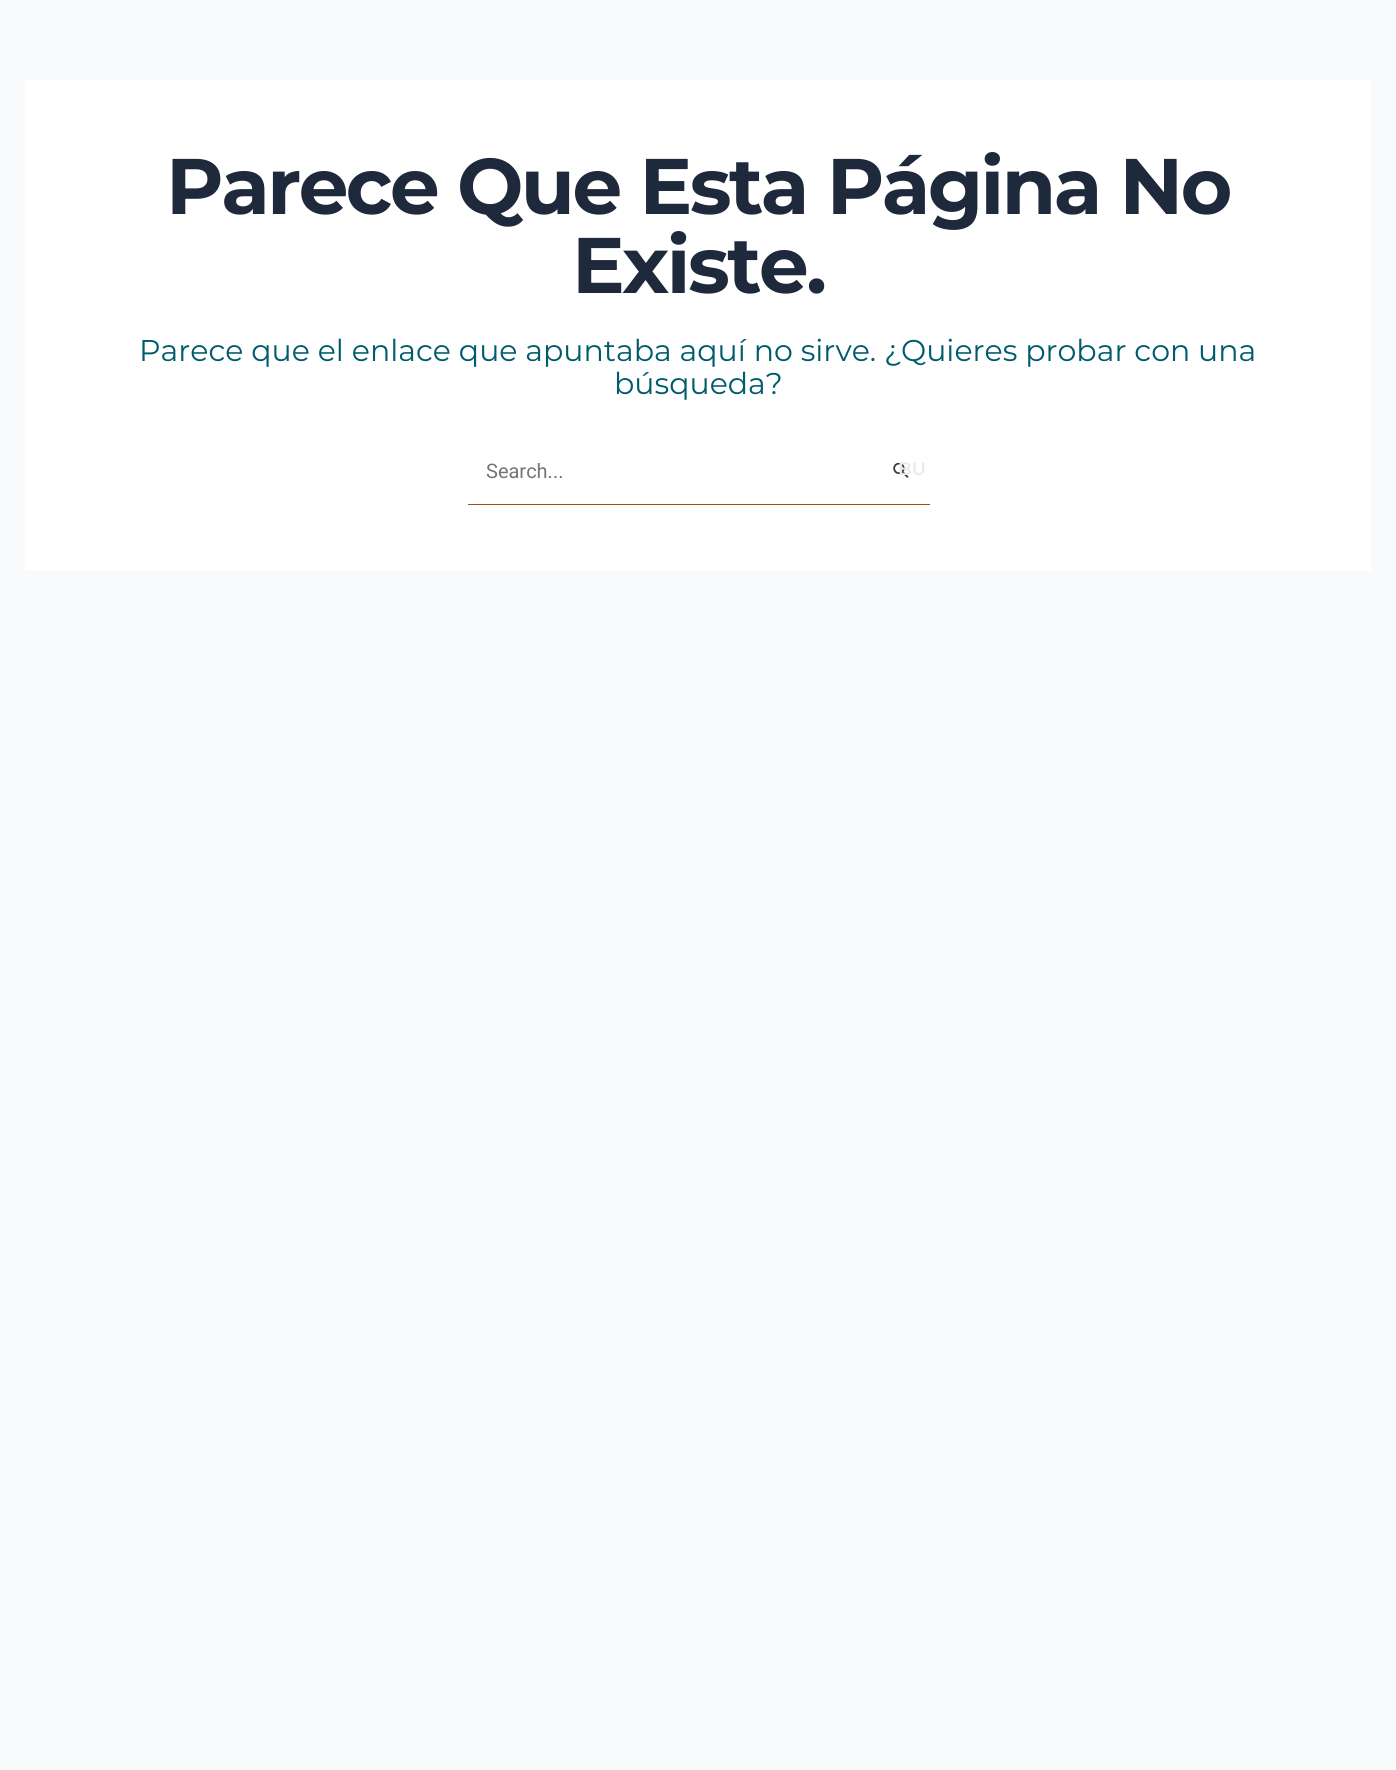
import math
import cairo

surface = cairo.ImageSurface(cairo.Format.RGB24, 1396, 1770)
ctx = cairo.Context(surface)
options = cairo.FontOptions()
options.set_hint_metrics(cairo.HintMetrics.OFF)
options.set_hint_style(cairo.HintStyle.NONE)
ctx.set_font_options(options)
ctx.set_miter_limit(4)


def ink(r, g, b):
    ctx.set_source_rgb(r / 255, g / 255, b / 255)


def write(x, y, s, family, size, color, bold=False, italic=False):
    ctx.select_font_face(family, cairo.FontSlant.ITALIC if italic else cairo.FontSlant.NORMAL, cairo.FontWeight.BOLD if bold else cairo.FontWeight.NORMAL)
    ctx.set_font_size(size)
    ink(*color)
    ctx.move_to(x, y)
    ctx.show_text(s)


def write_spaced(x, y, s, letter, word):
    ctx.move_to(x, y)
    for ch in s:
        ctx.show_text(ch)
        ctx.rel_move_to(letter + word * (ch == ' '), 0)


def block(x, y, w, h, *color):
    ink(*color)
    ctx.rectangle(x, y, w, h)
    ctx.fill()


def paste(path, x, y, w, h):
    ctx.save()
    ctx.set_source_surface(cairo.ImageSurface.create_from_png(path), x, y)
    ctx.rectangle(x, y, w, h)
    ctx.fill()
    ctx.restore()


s1 = dict(family="Montserrat", size=30, color=(0, 91, 109))
s2 = dict(family="Roboto", size=20, color=(117, 117, 117))
s3 = dict(family="Montserrat SemiBold", size=18, color=(234, 234, 234))

ink(249, 250, 251)
ctx.paint()
block(25, 80, 1346, 491, 255, 255, 255)
ctx.select_font_face("Montserrat", cairo.FontSlant.NORMAL, cairo.FontWeight.BOLD)
ctx.set_font_size(78.75)
ink(30, 41, 59)
write_spaced(166, 214, "Parece Que Esta Página No", -2.5, 0)
write_spaced(572, 293, "Existe.", -2.5, 0)
write(139, 361, "Parece que el enlace que apuntaba aquí no sirve. ¿Quieres probar con una", **s1)
write(614, 394, "búsqueda?", **s1)
block(468, 504, 462, 1, 167, 78, 10)
write(486, 478, "Search...", **s2)
paste("pic1.png", 893, 463, 16, 15)
write(898, 475, "BU", **s3)
surface.write_to_png("screenshot.png")
